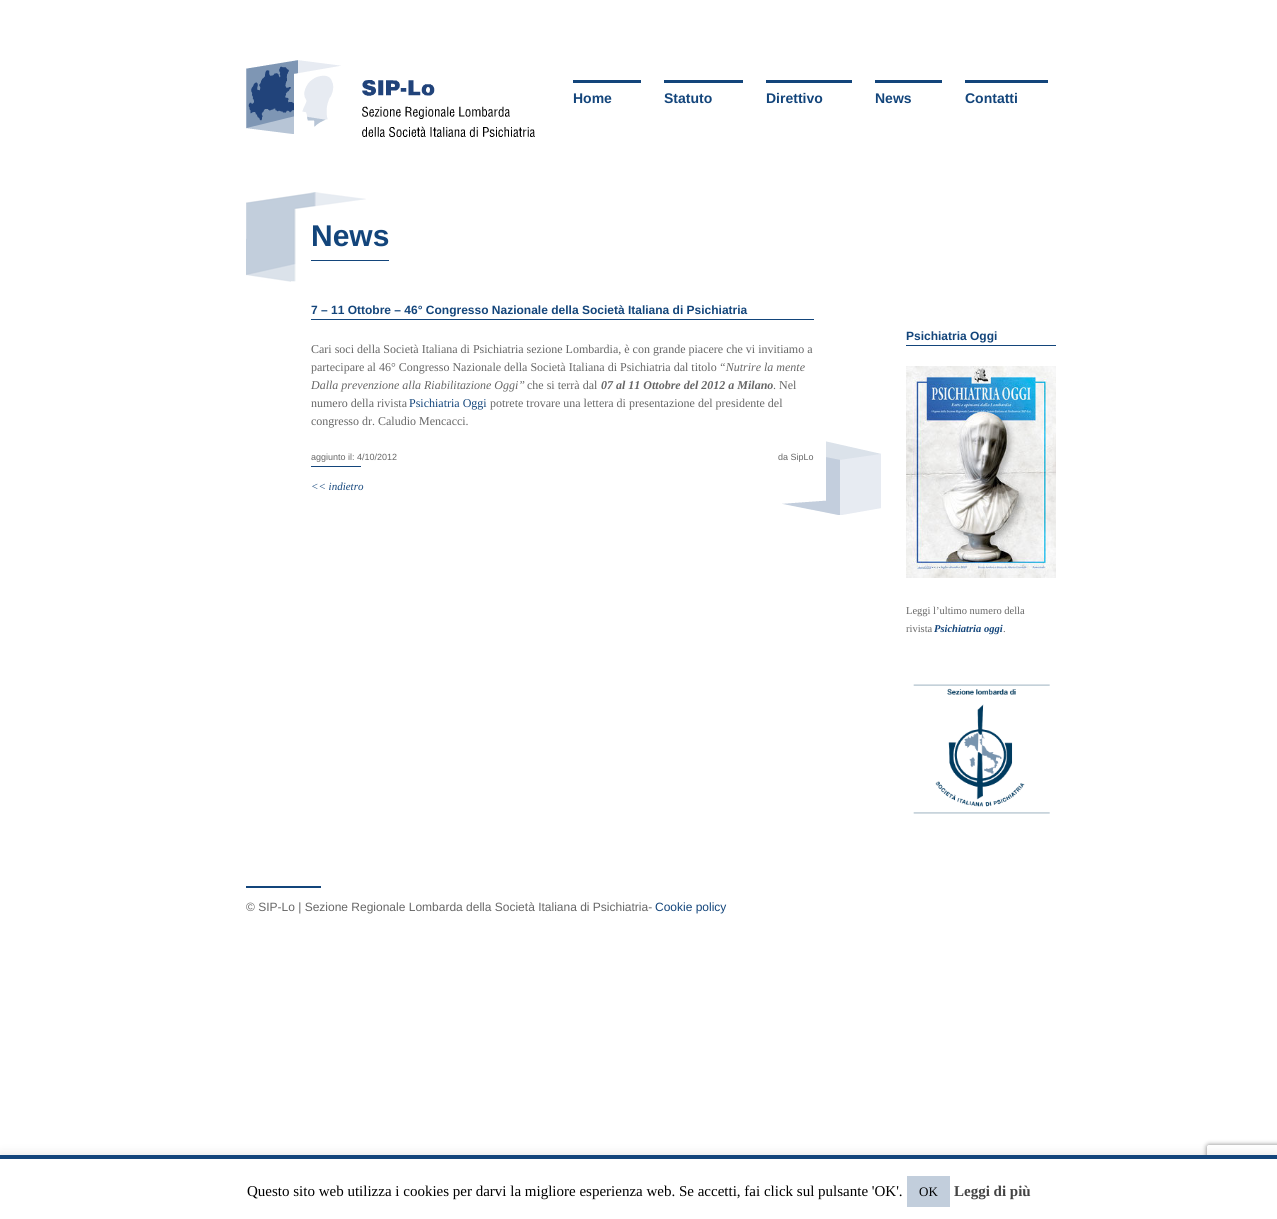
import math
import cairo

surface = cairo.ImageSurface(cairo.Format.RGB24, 1277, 1219)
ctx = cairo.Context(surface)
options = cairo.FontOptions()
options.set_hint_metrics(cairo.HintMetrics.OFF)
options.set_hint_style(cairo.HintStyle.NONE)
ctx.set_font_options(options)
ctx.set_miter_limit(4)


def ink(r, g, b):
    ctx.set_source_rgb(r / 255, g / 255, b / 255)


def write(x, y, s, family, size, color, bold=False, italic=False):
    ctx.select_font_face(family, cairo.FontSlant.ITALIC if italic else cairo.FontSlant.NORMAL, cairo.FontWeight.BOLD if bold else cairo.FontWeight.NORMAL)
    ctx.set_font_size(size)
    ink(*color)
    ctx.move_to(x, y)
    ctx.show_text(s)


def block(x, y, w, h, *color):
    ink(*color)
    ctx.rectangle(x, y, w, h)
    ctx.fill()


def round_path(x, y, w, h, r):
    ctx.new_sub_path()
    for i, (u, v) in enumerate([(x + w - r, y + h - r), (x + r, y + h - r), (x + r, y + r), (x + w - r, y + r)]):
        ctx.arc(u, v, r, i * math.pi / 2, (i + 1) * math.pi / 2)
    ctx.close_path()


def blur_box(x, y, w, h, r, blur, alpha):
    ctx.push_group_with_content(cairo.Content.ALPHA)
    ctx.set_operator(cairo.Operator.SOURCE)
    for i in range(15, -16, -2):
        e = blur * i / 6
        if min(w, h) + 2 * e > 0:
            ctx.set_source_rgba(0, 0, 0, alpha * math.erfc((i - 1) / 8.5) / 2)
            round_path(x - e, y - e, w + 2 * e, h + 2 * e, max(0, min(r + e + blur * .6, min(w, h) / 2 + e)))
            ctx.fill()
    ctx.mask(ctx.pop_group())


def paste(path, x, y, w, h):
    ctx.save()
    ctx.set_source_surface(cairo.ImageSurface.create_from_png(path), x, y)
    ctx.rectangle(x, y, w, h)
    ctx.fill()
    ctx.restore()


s1 = dict(family="Liberation Sans", size=14, color=(19, 69, 123), bold=True)
s2 = dict(family="Liberation Sans", size=30, color=(19, 69, 123), bold=True)
s3 = dict(family="Liberation Sans", size=12, color=(19, 69, 123), bold=True)
s4 = dict(family="Liberation Serif", size=12, color=(102, 102, 102))
s5 = dict(family="Liberation Serif", size=12, color=(102, 102, 102), italic=True)
s6 = dict(family="Liberation Serif", size=12, color=(102, 102, 102), bold=True, italic=True)
s7 = dict(family="Liberation Serif", size=12, color=(19, 69, 123))
s8 = dict(family="Liberation Sans", size=9, color=(102, 102, 102))
s9 = dict(family="Liberation Serif", size=11, color=(19, 69, 123), italic=True)
s10 = dict(family="Liberation Serif", size=10.5, color=(102, 102, 102))
s11 = dict(family="Liberation Serif", size=10.5, color=(19, 69, 123), bold=True, italic=True)
s12 = dict(family="Liberation Sans", size=12, color=(102, 102, 102))
s13 = dict(family="Liberation Sans", size=12, color=(19, 69, 123))
s14 = dict(family="Liberation Serif", size=15, color=(0, 0, 0))
s15 = dict(family="Liberation Serif", size=13, color=(0, 0, 0))
s16 = dict(family="Liberation Serif", size=15, color=(68, 68, 68), bold=True)

ink(255, 255, 255)
ctx.paint()
paste("pic1.png", 246, 60, 289, 77)
block(573, 80, 68, 3, 19, 69, 123)
write(573, 103, "Home", **s1)
block(664, 80, 79, 3, 19, 69, 123)
write(664, 103, "Statuto", **s1)
block(766, 80, 86, 3, 19, 69, 123)
write(766, 103, "Direttivo", **s1)
block(875, 80, 67, 3, 19, 69, 123)
write(875, 103, "News", **s1)
block(965, 80, 83, 3, 19, 69, 123)
write(965, 103, "Contatti", **s1)
paste("pic2.png", 246, 192, 120, 90)
block(311, 260, 78, 1, 19, 69, 123)
write(311, 246, "News", **s2)
ctx.set_source_rgba(1, 1, 1, 0.7)
ctx.rectangle(291, 281, 5, 1)
ctx.fill()
block(311, 319, 503, 1, 19, 69, 123)
write(311, 314, "7 – 11 Ottobre – 46° Congresso Nazionale della Società Italiana di Psichiatria", **s3)
write(311, 353, "Cari soci della Società Italiana di Psichiatria sezione Lombardia, è con grande piacere che vi invitiamo a", **s4)
write(311, 371, "partecipare al 46° Congresso Nazionale della Società Italiana di Psichiatria dal titolo", **s4)
write(719, 371, "“Nutrire la mente", **s5)
write(311, 389, "Dalla prevenzione alla Riabilitazione Oggi”", **s5)
write(527, 389, "che si terrà dal", **s4)
write(601, 389, "07 al 11 Ottobre del 2012 a Milano", **s6)
write(773, 389, ". Nel", **s4)
write(311, 407, "numero della rivista", **s4)
write(409, 407, "Psichiatria Oggi", **s7)
write(490, 407, "potrete trovare una lettera di presentazione del presidente del", **s4)
write(311, 425, "congresso dr. Caludio Mencacci.", **s4)
write(311, 460, "aggiunto il: 4/10/2012", **s8)
paste("pic3.png", 782, 441, 99, 74)
write(778, 460, "da SipLo", **s8)
block(311, 466, 50, 1, 19, 69, 123)
write(311, 490, "<< indietro", **s9)
block(906, 345, 150, 1, 19, 69, 123)
write(906, 340, "Psichiatria Oggi", **s3)
paste("pic4.png", 906, 366, 150, 212)
write(906, 614, "Leggi l’ultimo numero della", **s10)
write(906, 632, "rivista", **s10)
write(934, 632, "Psichiatria oggi", **s11)
write(1003, 632, ".", **s10)
paste("pic5.png", 913, 684, 137, 130)
block(246, 886, 75, 2, 19, 69, 123)
write(246, 911, "© SIP-Lo | Sezione Regionale Lombarda della Società Italiana di Psichiatria-", **s12)
write(655, 911, "Cookie policy", **s13)
ink(172, 171, 171)
blur_box(0, 1154, 1277, 64, 0, 5, 0.3)
ctx.save()
ctx.set_fill_rule(cairo.FillRule.EVEN_ODD)
ctx.new_path()
ctx.move_to(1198, 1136)
ctx.line_to(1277, 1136)
ctx.line_to(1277, 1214)
ctx.line_to(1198, 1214)
ctx.close_path()
ctx.move_to(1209, 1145)
ctx.line_to(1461, 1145)
ctx.curve_to(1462, 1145, 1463, 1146, 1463, 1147)
ctx.line_to(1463, 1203)
ctx.curve_to(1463, 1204, 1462, 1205, 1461, 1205)
ctx.line_to(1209, 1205)
ctx.curve_to(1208, 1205, 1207, 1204, 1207, 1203)
ctx.line_to(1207, 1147)
ctx.curve_to(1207, 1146, 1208, 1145, 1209, 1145)
ctx.close_path()
ctx.clip()
ink(128, 128, 128)
blur_box(1207, 1145, 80, 60, 2, 2.5, 1)
ctx.restore()
block(0, 1159, 1277, 60, 255, 255, 255)
block(0, 1155, 1277, 4, 19, 69, 123)
write(247, 1196, "Questo sito web utilizza i cookies per darvi la migliore esperienza web. Se accetti, fai click sul pulsante 'OK'.", **s14)
block(907, 1176, 43, 31, 194, 206, 220)
write(919, 1196, "OK", **s15)
write(954, 1196, "Leggi di più", **s16)
surface.write_to_png("screenshot.png")
